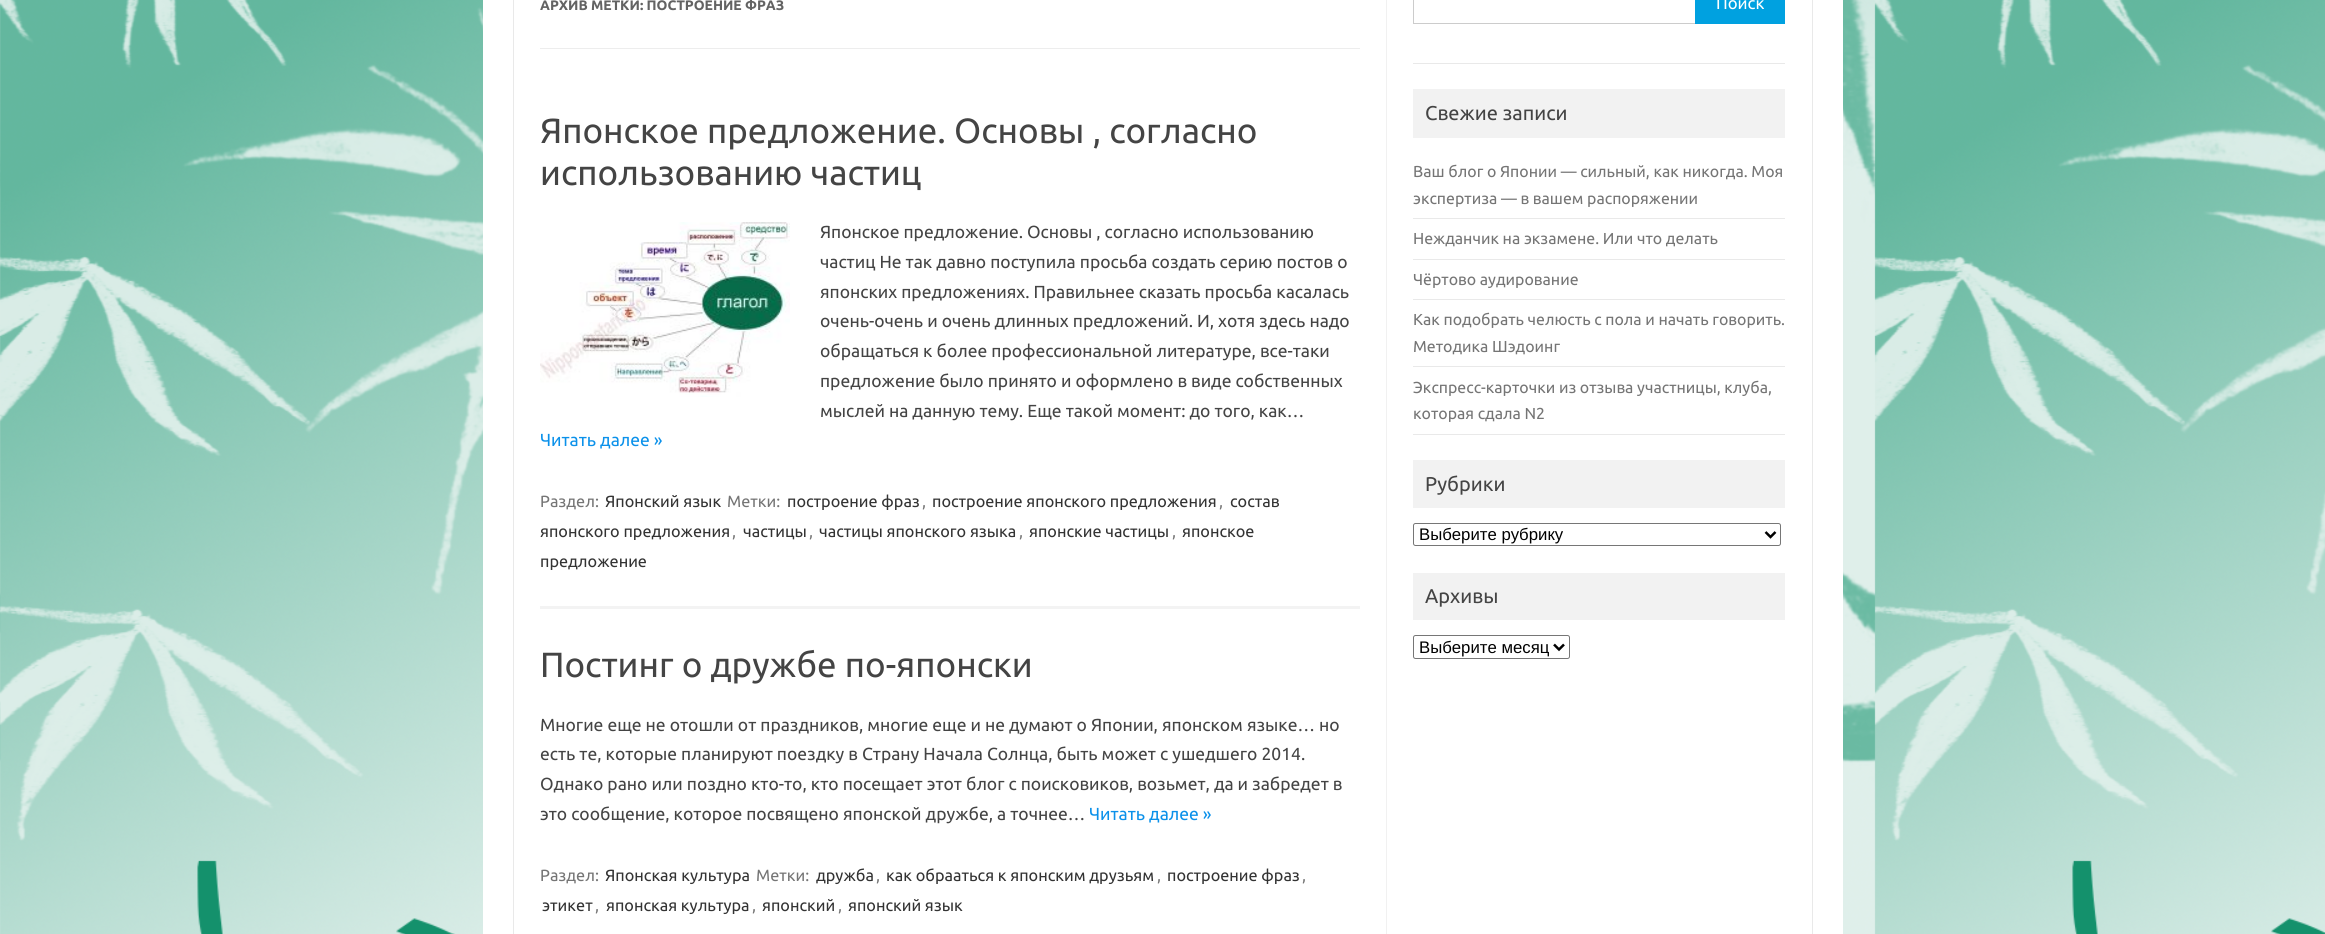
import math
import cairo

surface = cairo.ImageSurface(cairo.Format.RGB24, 2325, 934)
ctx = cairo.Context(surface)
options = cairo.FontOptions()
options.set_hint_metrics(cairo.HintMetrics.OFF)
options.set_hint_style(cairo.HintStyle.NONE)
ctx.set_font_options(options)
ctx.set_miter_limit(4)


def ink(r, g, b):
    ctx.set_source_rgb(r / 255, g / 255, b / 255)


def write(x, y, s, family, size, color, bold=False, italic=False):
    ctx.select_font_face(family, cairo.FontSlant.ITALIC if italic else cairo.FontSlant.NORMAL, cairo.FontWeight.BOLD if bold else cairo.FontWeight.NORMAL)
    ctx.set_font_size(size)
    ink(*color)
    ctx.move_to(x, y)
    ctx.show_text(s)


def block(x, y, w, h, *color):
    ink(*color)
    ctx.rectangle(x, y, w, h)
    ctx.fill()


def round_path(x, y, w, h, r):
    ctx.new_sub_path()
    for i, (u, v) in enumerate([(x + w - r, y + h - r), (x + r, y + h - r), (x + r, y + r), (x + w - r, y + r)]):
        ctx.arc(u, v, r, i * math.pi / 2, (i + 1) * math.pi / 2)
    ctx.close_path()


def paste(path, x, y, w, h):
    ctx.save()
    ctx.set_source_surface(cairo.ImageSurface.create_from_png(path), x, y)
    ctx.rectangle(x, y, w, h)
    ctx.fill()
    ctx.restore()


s1 = dict(family="Ubuntu", size=13.75, color=(99, 99, 99), bold=True)
s2 = dict(family="Ubuntu", size=35, color=(68, 68, 68))
s3 = dict(family="Ubuntu", size=17.5, color=(68, 68, 68))
s4 = dict(family="Ubuntu", size=17.5, color=(11, 145, 234))
s5 = dict(family="Ubuntu", size=16.25, color=(117, 117, 117))
s6 = dict(family="Ubuntu", size=16.25, color=(51, 51, 51))
s7 = dict(family="Ubuntu", size=16.75, color=(255, 255, 255))
s8 = dict(family="Ubuntu", size=20, color=(68, 68, 68))
s9 = dict(family="Ubuntu", size=15.9, color=(117, 117, 117))
s10 = dict(family="Liberation Sans", size=16.75, color=(0, 0, 0))

ink(255, 255, 255)
ctx.paint()
paste("pic1.png", 0, 0, 2325, 934)
block(483, 0, 1360, 934, 255, 255, 255)
ctx.rectangle(513.5, -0.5, 1299, 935)
ink(233, 233, 233)
ctx.set_line_width(1)
ctx.stroke()
block(1386, 0, 1, 934, 241, 241, 241)
block(540, 48, 820, 1, 237, 237, 237)
write(540, 10, "АРХИВ МЕТКИ: ПОСТРОЕНИЕ ФРАЗ", **s1)
block(540, 606, 820, 3, 243, 243, 243)
write(540, 143, "Японское предложение. Основы , согласно", **s2)
write(540, 185, "использованию частиц", **s2)
paste("pic2.png", 540, 222, 250, 175)
write(820, 238, "Японское предложение. Основы , согласно использованию", **s3)
write(820, 268, "частиц Не так давно поступила просьба создать серию постов о", **s3)
write(820, 298, "японских предложениях. Правильнее сказать просьба касалась", **s3)
write(820, 327, "очень-очень и очень длинных предложений. И, хотя здесь надо", **s3)
write(820, 357, "обращаться к более профессиональной литературе, все-таки", **s3)
write(820, 387, "предложение было принято и оформлено в виде собственных", **s3)
write(820, 417, "мыслей на данную тему. Еще такой момент: до того, как…", **s3)
write(540, 446, "Читать далее »", **s4)
write(540, 507, "Раздел:", **s5)
write(605, 507, "Японский язык", **s6)
write(727, 507, "Метки:", **s5)
write(787, 507, "построение фраз", **s6)
write(922, 507, ",", **s5)
write(932, 507, "построение японского предложения", **s6)
write(1219, 507, ",", **s5)
write(1230, 507, "состав", **s6)
write(540, 537, "японского предложения", **s6)
write(732, 537, ",", **s5)
write(743, 537, "частицы", **s6)
write(809, 537, ",", **s5)
write(819, 537, "частицы японского языка", **s6)
write(1019, 537, ",", **s5)
write(1029, 537, "японские частицы", **s6)
write(1172, 537, ",", **s5)
write(1182, 537, "японское", **s6)
write(540, 567, "предложение", **s6)
write(540, 677, "Постинг о дружбе по-японски", **s2)
write(540, 731, "Многие еще не отошли от праздников, многие еще и не думают о Японии, японском языке… но", **s3)
write(540, 760, "есть те, которые планируют поездку в Страну Начала Солнца, быть может с ушедшего 2014.", **s3)
write(540, 790, "Однако рано или поздно кто-то, кто посещает этот блог с поисковиков, возьмет, да и забредет в", **s3)
write(540, 820, "это сообщение, которое посвящено японской дружбе, а точнее…", **s3)
write(1089, 820, "Читать далее »", **s4)
write(540, 881, "Раздел:", **s5)
write(605, 881, "Японская культура", **s6)
write(756, 881, "Метки:", **s5)
write(816, 881, "дружба", **s6)
write(876, 881, ",", **s5)
write(886, 881, "как обрааться к японским друзьям", **s6)
write(1157, 881, ",", **s5)
write(1167, 881, "построение фраз", **s6)
write(1302, 881, ",", **s5)
write(542, 911, "этикет", **s6)
write(595, 911, ",", **s5)
write(606, 911, "японская культура", **s6)
write(752, 911, ",", **s5)
write(762, 911, "японский", **s6)
write(838, 911, ",", **s5)
write(848, 911, "японский язык", **s6)
ctx.rectangle(1413.5, -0.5, 284, 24)
ink(204, 204, 204)
ctx.stroke()
block(1695, 0, 90, 24, 0, 161, 224)
write(1716, 9, "Поиск", **s7)
block(1413, 63, 372, 1, 233, 233, 233)
block(1413, 89, 372, 49, 242, 242, 242)
write(1425, 120, "Свежие записи", **s8)
block(1413, 218, 372, 1, 233, 233, 233)
write(1413, 177, "Ваш блог о Японии — сильный, как никогда. Моя", **s9)
write(1413, 204, "экспертиза — в вашем распоряжении", **s9)
block(1413, 259, 372, 1, 233, 233, 233)
write(1413, 244, "Нежданчик на экзамене. Или что делать", **s9)
block(1413, 299, 372, 1, 233, 233, 233)
write(1413, 285, "Чёртово аудирование", **s9)
block(1413, 366, 372, 1, 233, 233, 233)
write(1413, 325, "Как подобрать челюсть с пола и начать говорить.", **s9)
write(1413, 352, "Методика Шэдоинг", **s9)
block(1413, 434, 372, 1, 233, 233, 233)
write(1413, 393, "Экспресс-карточки из отзыва участницы, клуба,", **s9)
write(1413, 419, "которая сдала N2", **s9)
block(1413, 460, 372, 48, 242, 242, 242)
write(1425, 491, "Рубрики", **s8)
round_path(1413.5, 523.5, 367, 22, 2)
ink(118, 118, 118)
ctx.stroke()
ctx.new_path()
ctx.move_to(1765.5, 532)
ctx.line_to(1770.5, 537)
ctx.line_to(1775.5, 532)
ink(0, 0, 0)
ctx.set_line_width(2.5)
ctx.stroke()
write(1419, 540, "Выберите рубрику", **s10)
block(1413, 573, 372, 47, 242, 242, 242)
write(1425, 603, "Архивы", **s8)
round_path(1413.5, 635.5, 156, 23, 2)
ink(118, 118, 118)
ctx.set_line_width(1)
ctx.stroke()
ctx.new_path()
ctx.move_to(1554, 644.5)
ctx.line_to(1559, 649.5)
ctx.line_to(1564, 644.5)
ink(0, 0, 0)
ctx.set_line_width(2.5)
ctx.stroke()
write(1419, 653, "Выберите месяц", **s10)
surface.write_to_png("screenshot.png")
